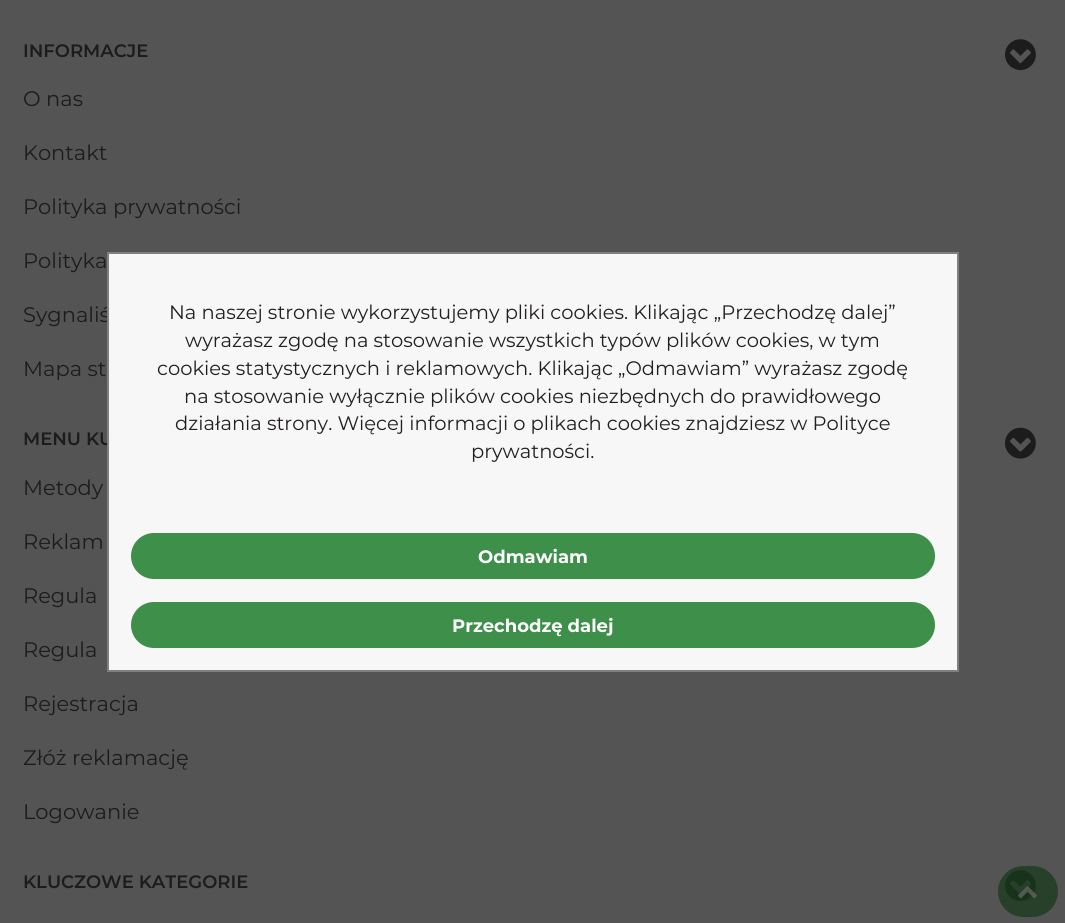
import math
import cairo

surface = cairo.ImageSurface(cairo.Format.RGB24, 1065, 923)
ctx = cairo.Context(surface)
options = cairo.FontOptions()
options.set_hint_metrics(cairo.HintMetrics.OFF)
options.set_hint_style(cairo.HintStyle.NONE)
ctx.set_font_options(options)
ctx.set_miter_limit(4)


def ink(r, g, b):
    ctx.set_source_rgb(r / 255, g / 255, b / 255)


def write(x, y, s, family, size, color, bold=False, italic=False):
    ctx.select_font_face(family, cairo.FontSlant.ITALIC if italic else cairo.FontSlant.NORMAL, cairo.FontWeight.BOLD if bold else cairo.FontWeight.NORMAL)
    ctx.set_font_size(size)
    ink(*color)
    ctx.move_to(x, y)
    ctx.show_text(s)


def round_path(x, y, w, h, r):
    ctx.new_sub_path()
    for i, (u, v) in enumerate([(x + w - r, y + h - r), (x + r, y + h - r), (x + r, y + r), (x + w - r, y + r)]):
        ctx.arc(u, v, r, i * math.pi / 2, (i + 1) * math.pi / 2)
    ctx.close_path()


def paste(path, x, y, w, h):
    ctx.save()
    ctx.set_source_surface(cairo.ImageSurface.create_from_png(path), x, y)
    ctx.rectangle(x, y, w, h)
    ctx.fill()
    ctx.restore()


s1 = dict(family="Montserrat SemiBold", size=18, color=(28, 28, 28))
s2 = dict(family="Montserrat", size=21, color=(28, 28, 28))
s3 = dict(family="Montserrat", size=19.5, color=(35, 31, 32))
s4 = dict(family="Montserrat", size=18, color=(255, 255, 255), bold=True)

ink(84, 84, 84)
ctx.paint()
write(23, 57, "INFORMACJE", **s1)
paste("pic1.png", 1005, 39, 31, 32)
write(23, 106, "O nas", **s2)
write(23, 160, "Kontakt", **s2)
write(23, 214, "Polityka prywatności", **s2)
write(23, 268, "Polityka", **s2)
write(23, 322, "Sygnaliś", **s2)
write(23, 376, "Mapa st", **s2)
write(23, 445, "MENU KU", **s1)
paste("pic2.png", 1005, 427, 31, 32)
write(23, 495, "Metody", **s2)
write(23, 549, "Reklam", **s2)
write(23, 603, "Regula", **s2)
write(23, 657, "Regula", **s2)
write(23, 711, "Rejestracja", **s2)
write(23, 765, "Złóż reklamację", **s2)
write(23, 819, "Logowanie", **s2)
write(23, 888, "KLUCZOWE KATEGORIE", **s1)
paste("pic1.png", 1005, 870, 31, 32)
ctx.set_source_rgba(0.094, 0.224, 0.114, 0.75)
round_path(999, 867, 58, 49, 24.5)
ctx.fill_preserve()
ink(40, 64, 43)
ctx.stroke()
paste("pic3.png", 1018, 886, 19, 13)
ctx.set_source_rgba(1, 1, 1, 0.95)
ctx.rectangle(108, 253, 850, 418)
ctx.fill_preserve()
ink(128, 128, 128)
ctx.stroke()
write(169, 319, "Na naszej stronie wykorzystujemy pliki cookies. Klikając „Przechodzę dalej”", **s3)
write(185, 347, "wyrażasz zgodę na stosowanie wszystkich typów plików cookies, w tym", **s3)
write(157, 375, "cookies statystycznych i reklamowych. Klikając „Odmawiam” wyrażasz zgodę", **s3)
write(184, 403, "na stosowanie wyłącznie plików cookies niezbędnych do prawidłowego", **s3)
write(175, 430, "działania strony. Więcej informacji o plikach cookies znajdziesz w Polityce", **s3)
write(471, 458, "prywatności.", **s3)
ink(61, 143, 73)
round_path(132, 534, 802, 44, 22)
ctx.fill_preserve()
ctx.stroke()
write(478, 563, "Odmawiam", **s4)
ink(61, 143, 73)
round_path(132, 603, 802, 44, 22)
ctx.fill_preserve()
ctx.stroke()
write(452, 632, "Przechodzę dalej", **s4)
surface.write_to_png("screenshot.png")
